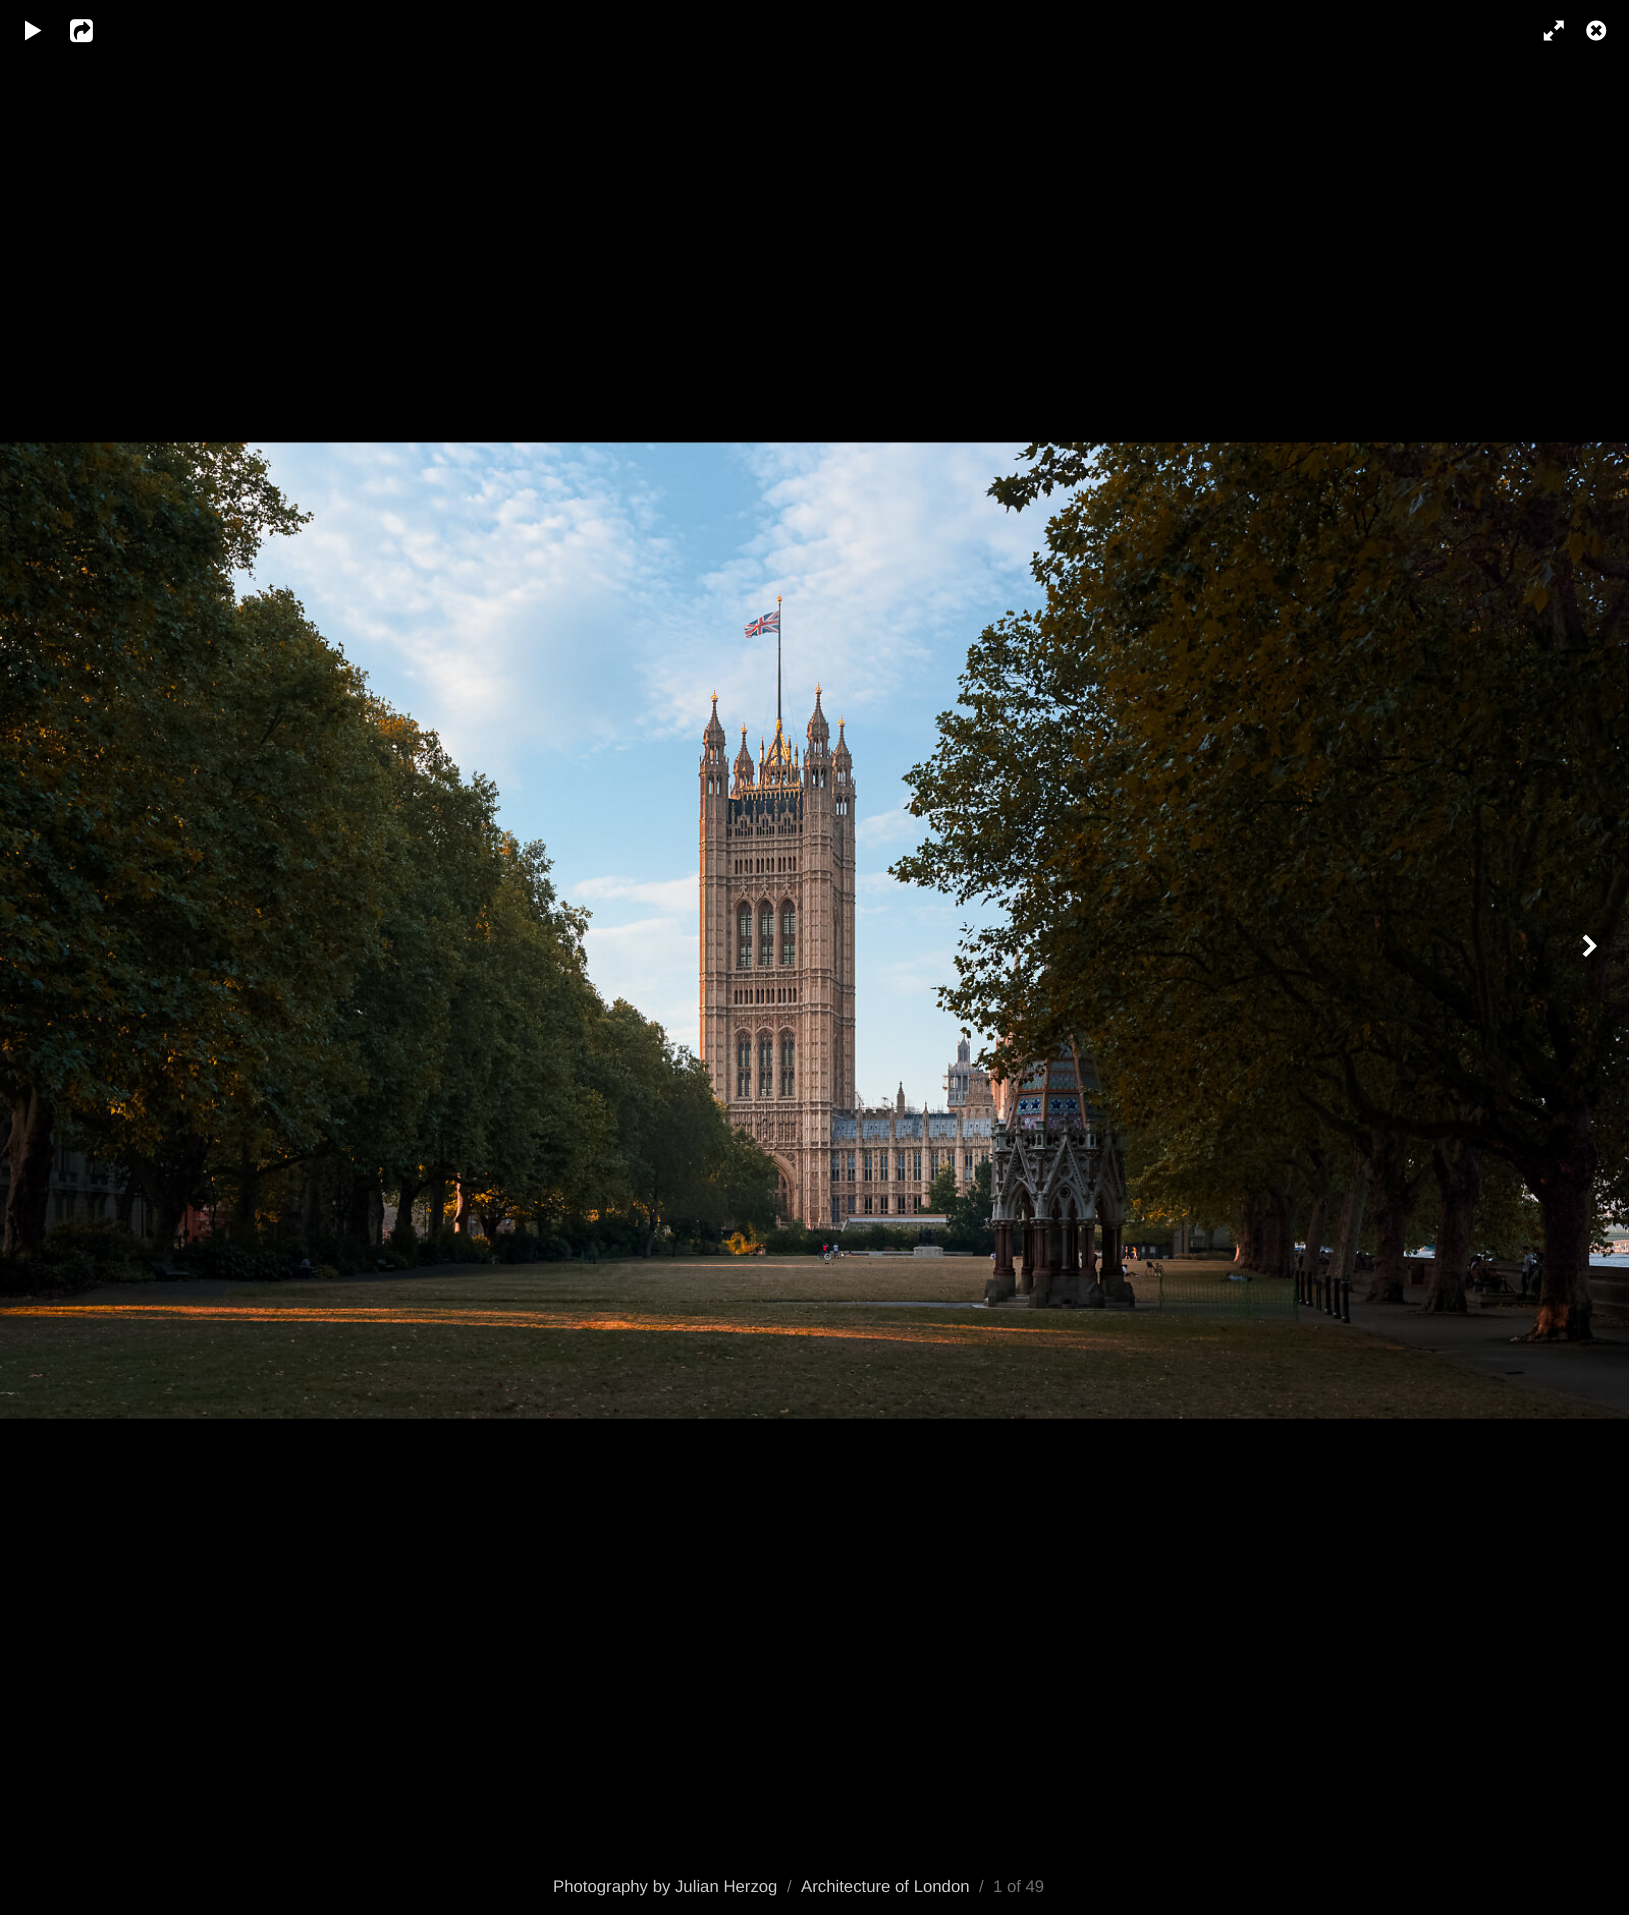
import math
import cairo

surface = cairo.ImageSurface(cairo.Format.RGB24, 1629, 1915)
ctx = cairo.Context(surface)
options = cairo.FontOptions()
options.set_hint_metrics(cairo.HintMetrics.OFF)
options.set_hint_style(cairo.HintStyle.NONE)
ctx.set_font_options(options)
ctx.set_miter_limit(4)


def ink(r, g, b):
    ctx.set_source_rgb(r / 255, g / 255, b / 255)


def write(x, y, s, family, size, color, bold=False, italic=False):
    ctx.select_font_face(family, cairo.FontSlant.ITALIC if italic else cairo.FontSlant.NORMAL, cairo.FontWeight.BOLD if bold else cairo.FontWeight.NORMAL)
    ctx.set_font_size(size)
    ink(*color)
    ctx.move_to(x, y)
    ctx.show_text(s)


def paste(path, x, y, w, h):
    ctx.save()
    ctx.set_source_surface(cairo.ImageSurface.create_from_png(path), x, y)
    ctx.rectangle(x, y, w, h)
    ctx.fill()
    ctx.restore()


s1 = dict(family="Liberation Sans", size=16.75, color=(204, 204, 204))
s2 = dict(family="Liberation Sans", size=16.75, color=(112, 112, 112))

ink(0, 0, 0)
ctx.paint()
ink(255, 255, 255)
ctx.new_path()
ctx.move_to(25, 40.5)
ctx.line_to(25, 20.5)
ctx.line_to(41.5, 30.5)
ctx.close_path()
ctx.fill()
paste("pic1.png", 70, 19, 23, 24)
paste("pic2.png", 1543, 20, 21, 21)
paste("pic3.png", 1586, 20, 21, 21)
paste("pic4.png", 0, 442, 1629, 977)
ctx.new_path()
ctx.move_to(1582.5, 954)
ctx.line_to(1590.5, 946)
ctx.line_to(1582.5, 938)
ctx.line_to(1586, 934.5)
ctx.line_to(1597, 946)
ctx.line_to(1586, 957)
ctx.close_path()
ctx.fill()
write(553, 1892, "Photography by Julian Herzog", **s1)
write(787, 1892, "/", **s2)
write(801, 1892, "Architecture of London", **s1)
write(979, 1892, "/  1 of 49", **s2)
surface.write_to_png("screenshot.png")
